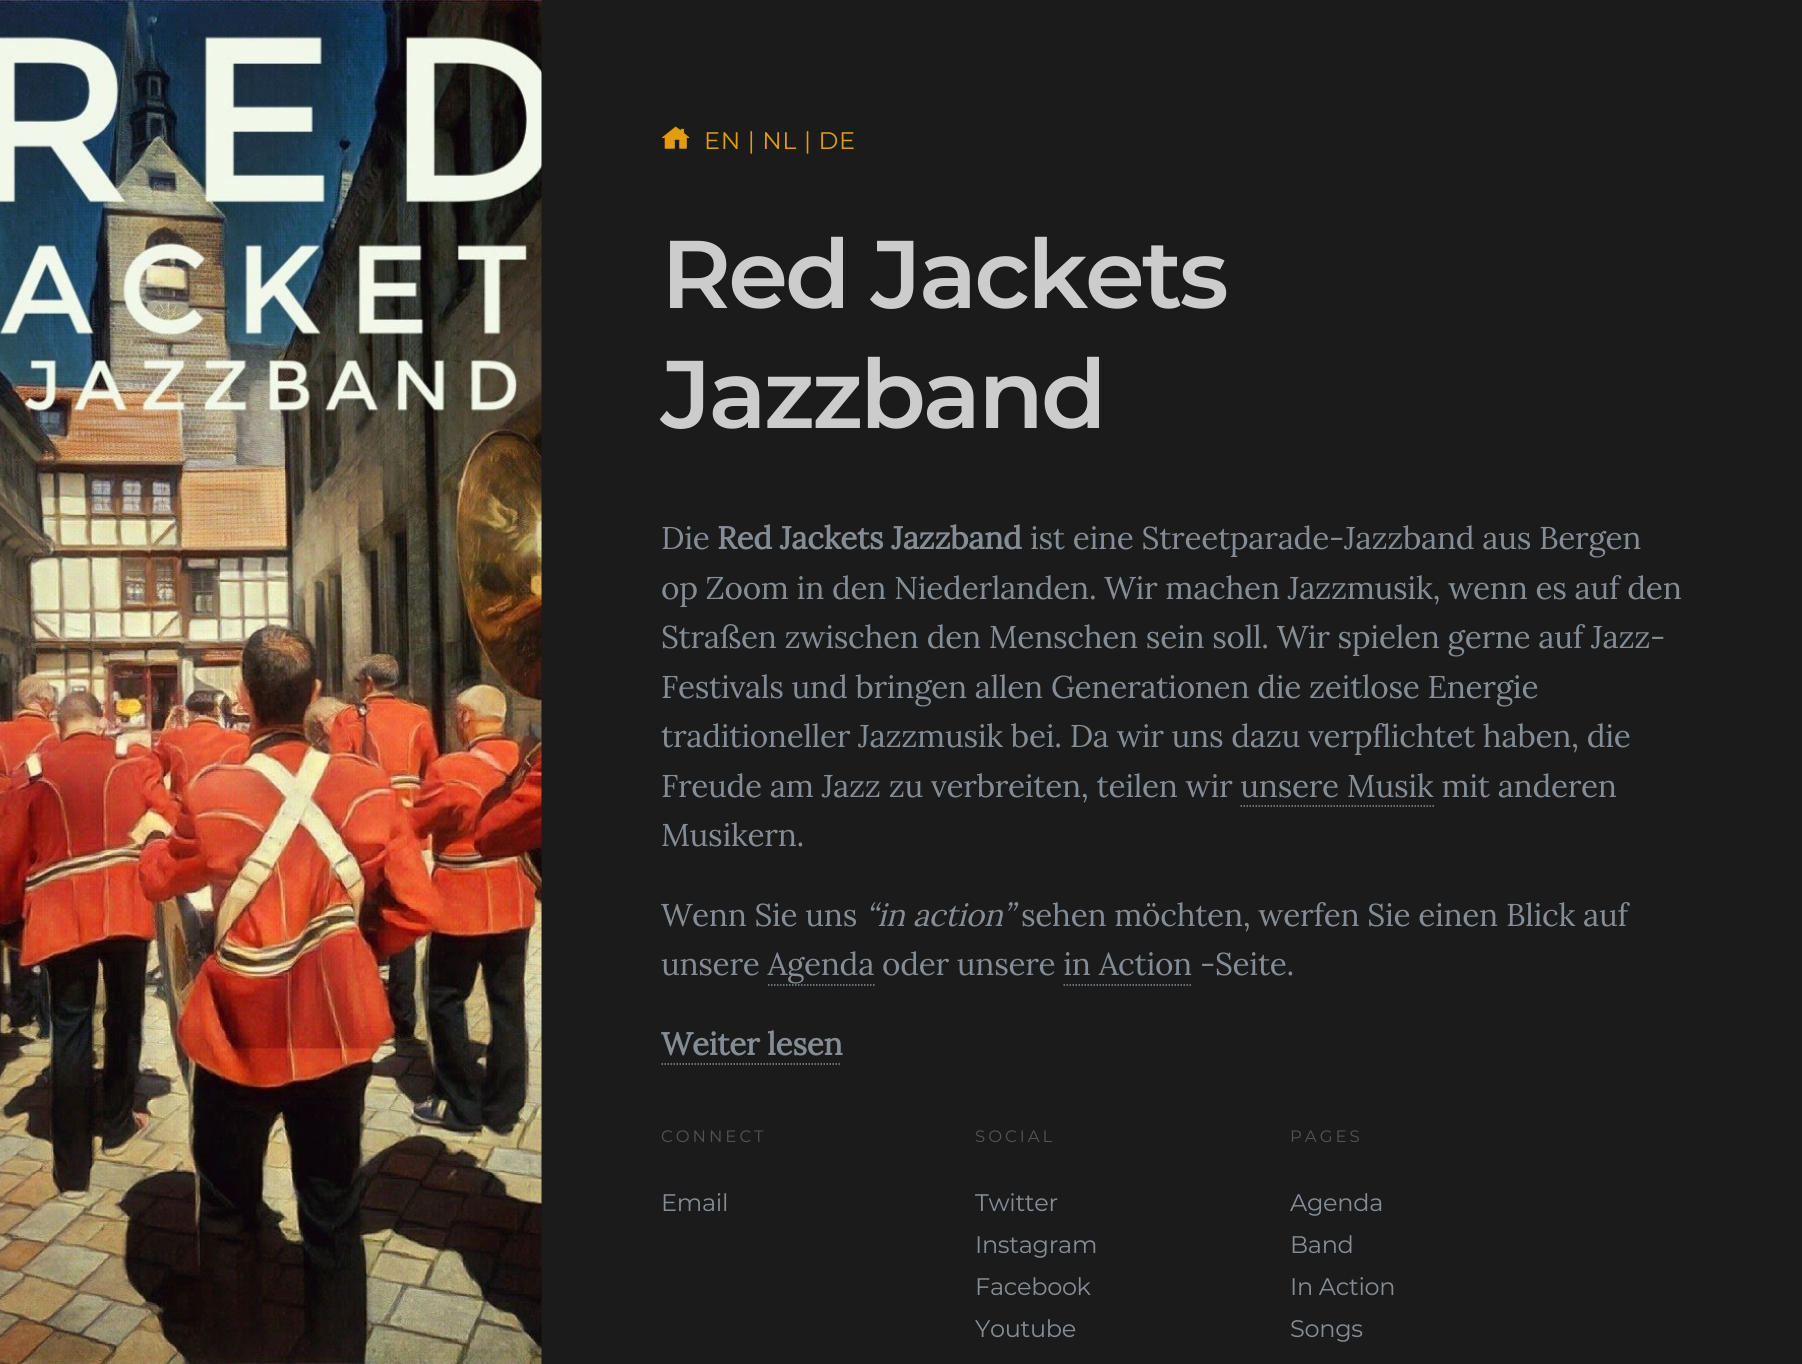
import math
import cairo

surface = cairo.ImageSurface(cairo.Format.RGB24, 1802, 1364)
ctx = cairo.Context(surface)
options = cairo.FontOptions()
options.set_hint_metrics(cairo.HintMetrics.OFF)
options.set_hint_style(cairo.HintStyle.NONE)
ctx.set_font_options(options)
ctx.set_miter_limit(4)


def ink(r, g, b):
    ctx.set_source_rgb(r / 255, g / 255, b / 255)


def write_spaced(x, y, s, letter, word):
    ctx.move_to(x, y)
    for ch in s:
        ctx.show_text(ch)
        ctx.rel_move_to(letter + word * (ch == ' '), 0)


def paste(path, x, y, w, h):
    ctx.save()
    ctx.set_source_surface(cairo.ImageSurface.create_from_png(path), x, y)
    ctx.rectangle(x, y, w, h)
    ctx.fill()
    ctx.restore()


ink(27, 27, 27)
ctx.paint()
paste("pic1.png", 0, 0, 542, 1364)
paste("pic2.png", 662, 126, 28, 23)
ctx.select_font_face("Montserrat")
ctx.set_font_size(24)
ink(226, 157, 15)
write_spaced(704, 149, "EN | NL | DE", 0.6, 0)
ctx.select_font_face("Montserrat SemiBold")
ctx.set_font_size(96)
ink(204, 204, 204)
write_spaced(661, 308, "Red Jackets", -3, 0)
write_spaced(661, 428, "Jazzband", -3, 0)
ctx.select_font_face("Lora")
ctx.set_font_size(31.5)
ink(132, 141, 150)
write_spaced(661, 549, "Die", -0.3, 0)
ctx.select_font_face("Lora", cairo.FontSlant.NORMAL, cairo.FontWeight.BOLD)
write_spaced(717, 549, "Red Jackets Jazzband", -0.3, 0)
ctx.select_font_face("Lora")
write_spaced(1030, 549, "ist eine Streetparade-Jazzband aus Bergen", -0.3, 0)
write_spaced(661, 599, "op Zoom in den Niederlanden. Wir machen Jazzmusik, wenn es auf den", -0.3, 0)
write_spaced(661, 648, "Straßen zwischen den Menschen sein soll. Wir spielen gerne auf Jazz-", -0.3, 0)
write_spaced(661, 698, "Festivals und bringen allen Generationen die zeitlose Energie", -0.3, 0)
write_spaced(661, 747, "traditioneller Jazzmusik bei. Da wir uns dazu verpflichtet haben, die", -0.3, 0)
write_spaced(661, 797, "Freude am Jazz zu verbreiten, teilen wir unsere Musik mit anderen", -0.3, 0)
ctx.new_path()
ctx.move_to(1240.5, 806)
ctx.line_to(1434, 806)
ctx.set_line_width(1.5)
ctx.set_dash([1.5, 1.5])
ctx.stroke()
write_spaced(661, 846, "Musikern.", -0.3, 0)
write_spaced(661, 926, "Wenn Sie uns", -0.3, 0)
ctx.select_font_face("Lora", cairo.FontSlant.ITALIC)
write_spaced(865, 926, "“in action”", -0.3, 0)
ctx.select_font_face("Lora")
write_spaced(1021, 926, "sehen möchten, werfen Sie einen Blick auf", -0.3, 0)
write_spaced(661, 975, "unsere Agenda oder unsere in Action -Seite.", -0.3, 0)
ctx.new_path()
ctx.move_to(768, 985)
ctx.line_to(874.5, 985)
ctx.stroke()
ctx.new_path()
ctx.move_to(1063.5, 985)
ctx.line_to(1192.5, 985)
ctx.stroke()
ctx.select_font_face("Lora", cairo.FontSlant.NORMAL, cairo.FontWeight.BOLD)
write_spaced(661, 1055, "Weiter lesen", -0.3, 0)
ctx.new_path()
ctx.move_to(661.5, 1064)
ctx.line_to(841.5, 1064)
ctx.stroke()
ctx.select_font_face("Montserrat")
ctx.set_font_size(16.5)
ink(80, 84, 89)
write_spaced(661, 1142, "CONNECT", 3, 0)
ctx.set_font_size(24)
ink(132, 141, 150)
write_spaced(661, 1211, "Email", -0.3, 0)
ctx.set_font_size(16.5)
ink(80, 84, 89)
write_spaced(975, 1142, "SOCIAL", 3, 0)
ctx.set_font_size(24)
ink(132, 141, 150)
write_spaced(975, 1211, "Twitter", -0.3, 0)
write_spaced(975, 1253, "Instagram", -0.3, 0)
write_spaced(975, 1295, "Facebook", -0.3, 0)
write_spaced(975, 1337, "Youtube", -0.3, 0)
ctx.set_font_size(16.5)
ink(80, 84, 89)
write_spaced(1290, 1142, "PAGES", 3, 0)
ctx.set_font_size(24)
ink(132, 141, 150)
write_spaced(1290, 1211, "Agenda", -0.3, 0)
write_spaced(1290, 1253, "Band", -0.3, 0)
write_spaced(1290, 1295, "In Action", -0.3, 0)
write_spaced(1290, 1337, "Songs", -0.3, 0)
surface.write_to_png("screenshot.png")
